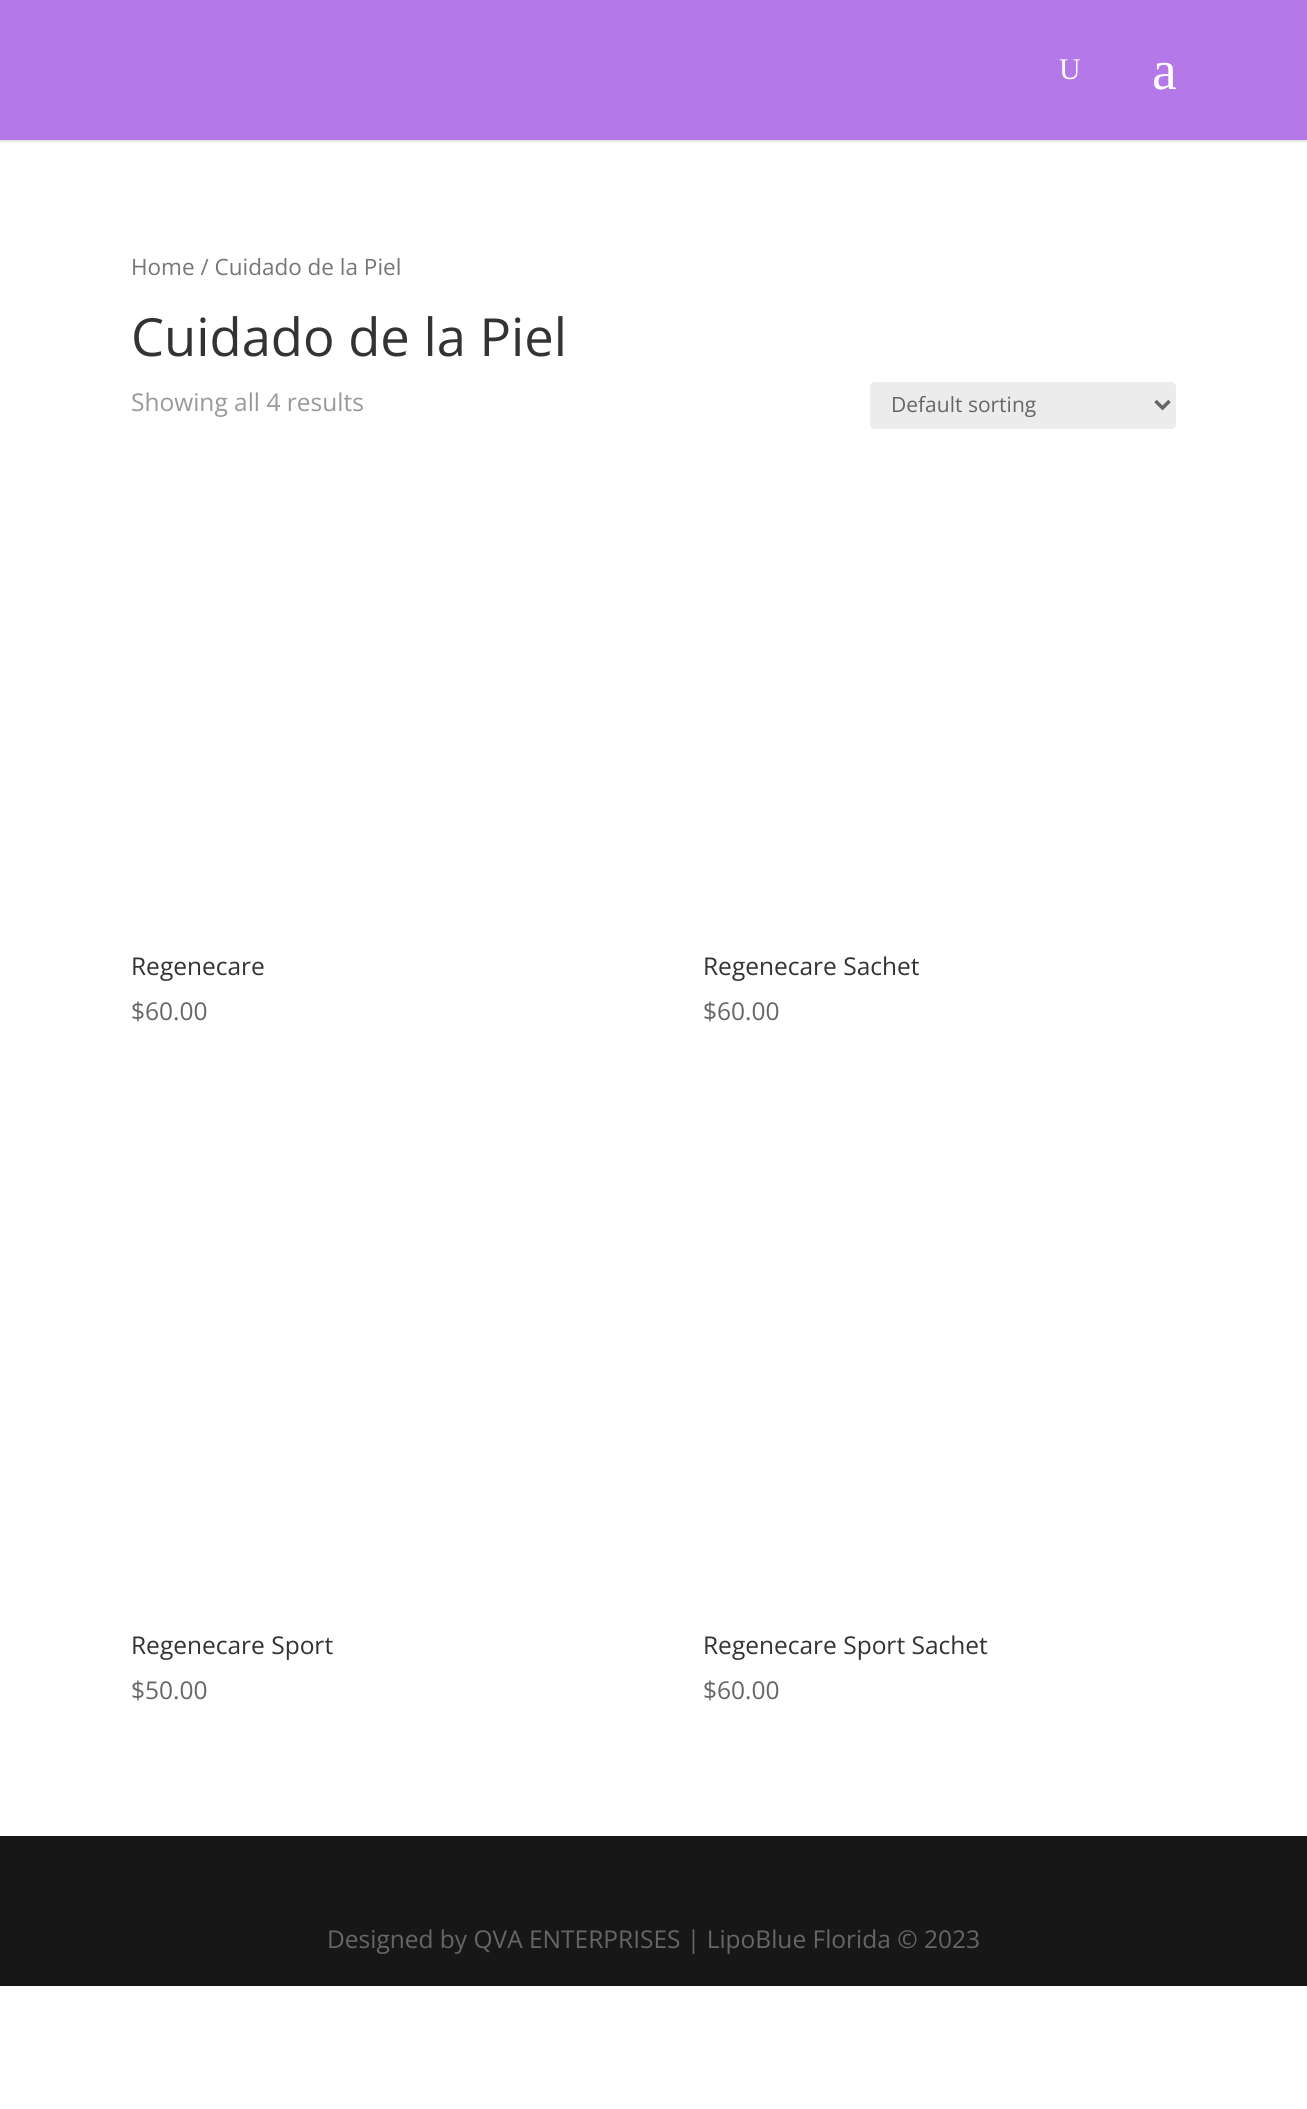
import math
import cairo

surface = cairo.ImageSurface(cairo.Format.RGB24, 1307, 2109)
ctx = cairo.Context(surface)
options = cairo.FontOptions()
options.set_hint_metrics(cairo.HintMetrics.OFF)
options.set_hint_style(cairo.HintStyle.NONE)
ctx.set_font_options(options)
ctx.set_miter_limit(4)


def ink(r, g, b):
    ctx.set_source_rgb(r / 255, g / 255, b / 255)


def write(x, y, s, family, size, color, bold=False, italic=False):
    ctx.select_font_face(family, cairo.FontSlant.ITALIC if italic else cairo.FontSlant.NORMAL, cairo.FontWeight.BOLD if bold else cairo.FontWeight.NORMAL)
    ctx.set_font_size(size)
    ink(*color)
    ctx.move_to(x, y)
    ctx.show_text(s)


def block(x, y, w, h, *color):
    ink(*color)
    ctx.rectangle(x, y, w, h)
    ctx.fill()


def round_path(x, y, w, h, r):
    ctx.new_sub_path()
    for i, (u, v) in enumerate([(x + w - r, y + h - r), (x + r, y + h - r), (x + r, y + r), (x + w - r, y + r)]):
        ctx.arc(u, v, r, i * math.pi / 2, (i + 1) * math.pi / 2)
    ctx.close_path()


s1 = dict(family="Liberation Serif", size=30, color=(255, 255, 255))
s2 = dict(family="Liberation Serif", size=56, color=(255, 255, 255))
s3 = dict(family="Open Sans", size=22.5, color=(118, 118, 118))
s4 = dict(family="Open Sans", size=52.5, color=(51, 51, 51))
s5 = dict(family="Open Sans", size=24.5, color=(153, 153, 153))
s6 = dict(family="Open Sans", size=21, color=(102, 102, 102))
s7 = dict(family="Open Sans", size=24.5, color=(51, 51, 51))
s8 = dict(family="Open Sans", size=24.5, color=(102, 102, 102))

ink(255, 255, 255)
ctx.paint()
block(0, 140, 1307, 2, 230, 230, 230)
block(0, 0, 1307, 140, 181, 120, 232)
write(1059, 79, "U", **s1)
write(1152, 89, "a", **s2)
write(131, 275, "Home / Cuidado de la Piel", **s3)
write(131, 356, "Cuidado de la Piel", **s4)
write(131, 411, "Showing all 4 results", **s5)
ink(236, 236, 236)
round_path(870, 382, 306, 47, 5)
ctx.fill()
ctx.new_path()
ctx.move_to(1155.5, 401)
ctx.line_to(1162.5, 408)
ctx.line_to(1169.5, 401)
ink(102, 102, 102)
ctx.set_line_width(3.5)
ctx.stroke()
write(891, 412, "Default sorting", **s6)
write(131, 975, "Regenecare", **s7)
write(131, 1020, "$60.00", **s8)
write(703, 975, "Regenecare Sachet", **s7)
write(703, 1020, "$60.00", **s8)
write(131, 1654, "Regenecare Sport", **s7)
write(131, 1699, "$50.00", **s8)
write(703, 1654, "Regenecare Sport Sachet", **s7)
write(703, 1699, "$60.00", **s8)
block(0, 1836, 1307, 150, 23, 23, 23)
write(327, 1948, "Designed by QVA ENTERPRISES | LipoBlue Florida © 2023", **s8)
surface.write_to_png("screenshot.png")
